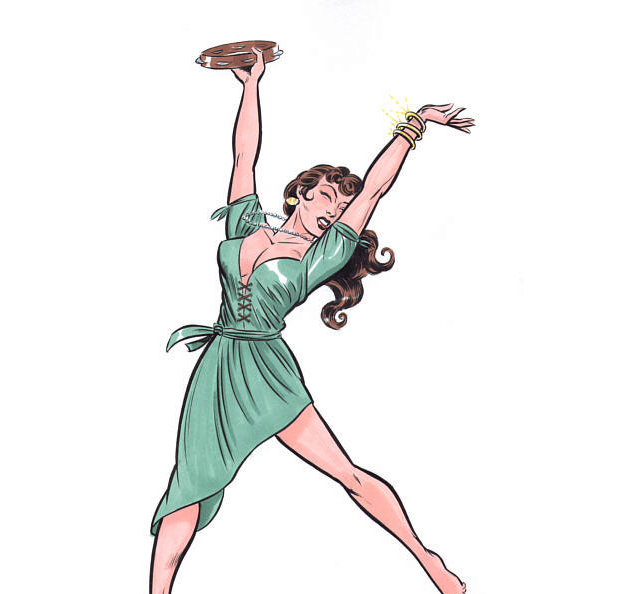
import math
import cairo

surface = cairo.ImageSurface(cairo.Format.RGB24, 626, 594)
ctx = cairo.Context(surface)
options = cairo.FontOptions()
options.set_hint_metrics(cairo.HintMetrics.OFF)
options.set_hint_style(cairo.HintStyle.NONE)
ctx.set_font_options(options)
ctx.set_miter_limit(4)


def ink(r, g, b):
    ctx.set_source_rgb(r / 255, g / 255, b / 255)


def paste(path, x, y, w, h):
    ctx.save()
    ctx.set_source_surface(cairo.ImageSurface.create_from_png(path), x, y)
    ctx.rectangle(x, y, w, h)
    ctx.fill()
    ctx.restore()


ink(255, 255, 255)
ctx.paint()
paste("pic1.png", 143, 0, 381, 594)
surface.write_to_png("screenshot.png")
